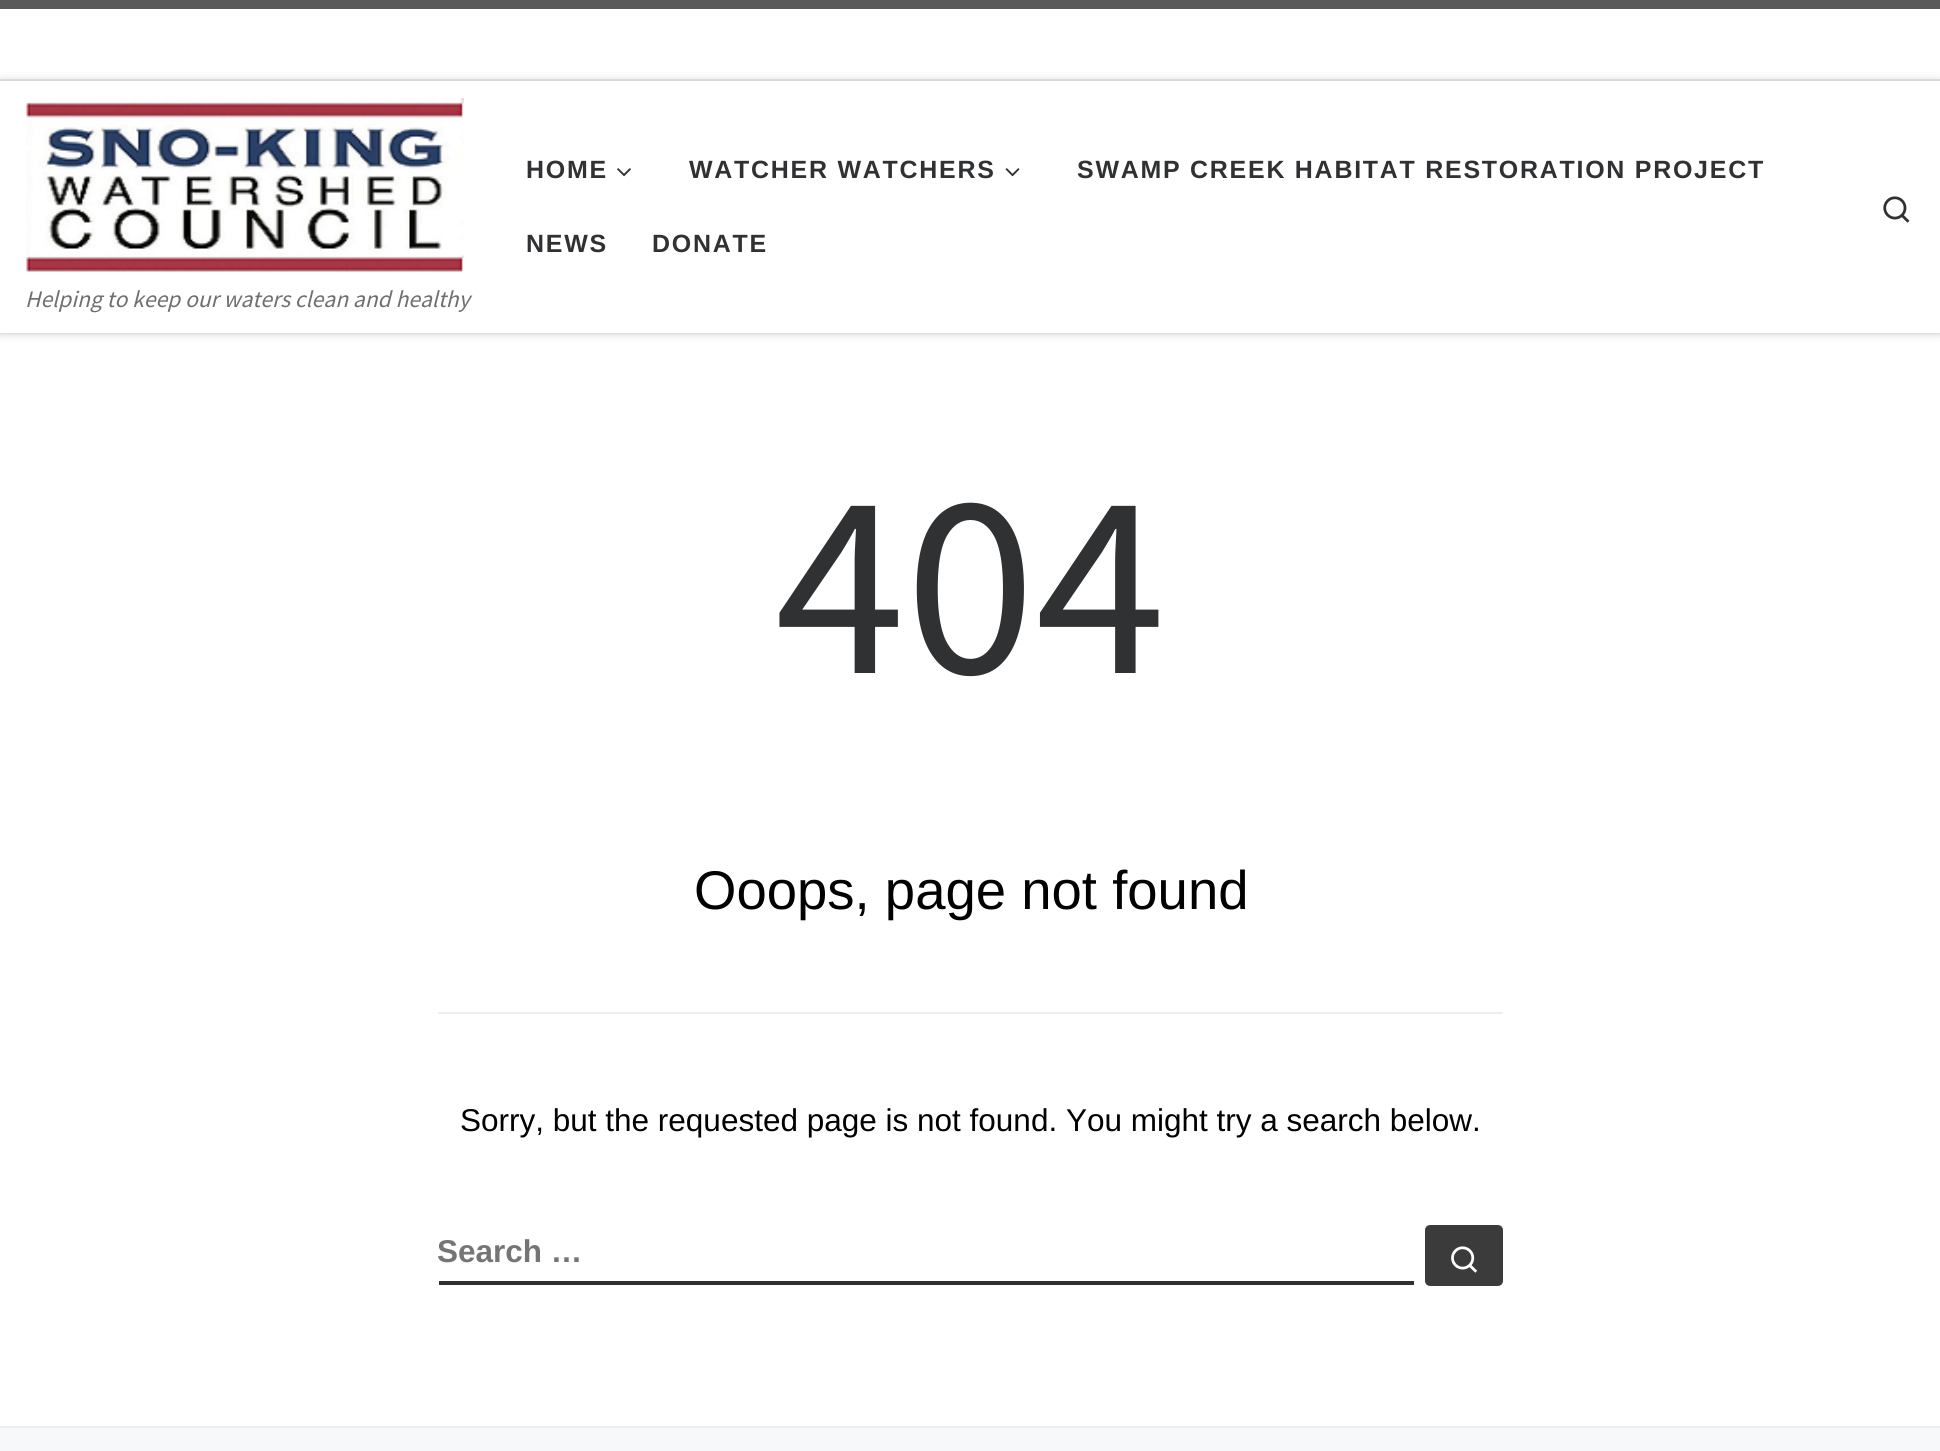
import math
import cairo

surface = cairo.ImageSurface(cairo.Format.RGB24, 1940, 1451)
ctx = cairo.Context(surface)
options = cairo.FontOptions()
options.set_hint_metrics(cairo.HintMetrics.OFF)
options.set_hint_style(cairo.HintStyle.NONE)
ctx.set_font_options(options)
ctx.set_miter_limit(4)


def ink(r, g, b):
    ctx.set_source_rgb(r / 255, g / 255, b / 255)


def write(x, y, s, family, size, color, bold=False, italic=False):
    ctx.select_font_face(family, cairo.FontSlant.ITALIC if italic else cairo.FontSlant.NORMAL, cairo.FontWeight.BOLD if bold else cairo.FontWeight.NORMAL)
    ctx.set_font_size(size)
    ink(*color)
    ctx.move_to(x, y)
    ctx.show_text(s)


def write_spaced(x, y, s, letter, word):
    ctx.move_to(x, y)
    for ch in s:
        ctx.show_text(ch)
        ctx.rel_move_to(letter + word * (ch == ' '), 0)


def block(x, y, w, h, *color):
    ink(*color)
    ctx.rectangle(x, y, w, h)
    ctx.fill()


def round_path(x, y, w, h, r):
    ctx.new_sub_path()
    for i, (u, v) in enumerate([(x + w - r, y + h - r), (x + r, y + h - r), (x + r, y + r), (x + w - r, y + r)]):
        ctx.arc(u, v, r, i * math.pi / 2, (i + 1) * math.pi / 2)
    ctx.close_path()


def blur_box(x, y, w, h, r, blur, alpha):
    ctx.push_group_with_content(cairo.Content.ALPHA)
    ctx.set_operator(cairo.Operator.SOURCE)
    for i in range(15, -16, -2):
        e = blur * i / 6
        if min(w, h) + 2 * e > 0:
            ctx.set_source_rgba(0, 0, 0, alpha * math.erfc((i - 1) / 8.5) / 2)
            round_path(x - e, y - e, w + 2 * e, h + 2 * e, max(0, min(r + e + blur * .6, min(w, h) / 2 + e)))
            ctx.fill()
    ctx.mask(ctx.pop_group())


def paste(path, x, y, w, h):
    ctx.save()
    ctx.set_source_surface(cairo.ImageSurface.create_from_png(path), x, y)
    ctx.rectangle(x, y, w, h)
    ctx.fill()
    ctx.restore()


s1 = dict(family="Source Sans Pro", size=23.6, color=(111, 111, 111), italic=True)
s2 = dict(family="Source Sans Pro", size=262, color=(48, 49, 51))
s3 = dict(family="Liberation Sans", size=54.5, color=(0, 0, 0))
s4 = dict(family="Liberation Sans", size=31.5, color=(0, 0, 0))
s5 = dict(family="Liberation Sans", size=31.5, color=(117, 117, 117), bold=True)

ink(255, 255, 255)
ctx.paint()
ink(102, 102, 102)
blur_box(0, 4, 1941, 330, 0, 2, 0.08)
block(0, 9, 1940, 70, 255, 255, 255)
block(0, 0, 1940, 9, 90, 90, 90)
block(0, 79, 1940, 2, 236, 236, 236)
ink(0, 0, 0)
blur_box(0, 81, 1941, 252, 0, 4.5, 0.2)
block(0, 81, 1940, 252, 255, 255, 255)
ctx.select_font_face("Liberation Sans", cairo.FontSlant.NORMAL, cairo.FontWeight.BOLD)
ctx.set_font_size(24.95)
ink(48, 49, 51)
write_spaced(526, 178, "HOME", 1.75, 0)
paste("pic1.png", 617, 168, 14, 9)
write_spaced(689, 178, "WATCHER WATCHERS", 1.75, 0)
paste("pic2.png", 1005, 168, 15, 9)
write_spaced(1077, 178, "SWAMP CREEK HABITAT RESTORATION PROJECT", 1.75, 0)
write_spaced(526, 252, "NEWS", 1.75, 0)
write_spaced(652, 252, "DONATE", 1.75, 0)
paste("pic3.png", 1883, 196, 27, 27)
paste("pic4.png", 26, 98, 438, 174)
write(25, 307, "Helping to keep our waters clean and healthy", **s1)
write(775, 673, "404", **s2)
write(694, 909, "Ooops, page not found", **s3)
block(438, 1012, 1065, 2, 236, 238, 239)
write(460, 1131, "Sorry, but the requested page is not found. You might try a search below.", **s4)
block(439, 1281, 975, 4, 49, 49, 49)
write(437, 1262, "Search …", **s5)
ink(59, 59, 59)
round_path(1427, 1227, 74, 57, 3)
ctx.fill_preserve()
ctx.set_line_width(4)
ctx.stroke()
paste("pic5.png", 1451, 1246, 27, 27)
block(0, 1426, 1940, 2, 236, 238, 239)
block(0, 1428, 1940, 23, 247, 248, 249)
surface.write_to_png("screenshot.png")
